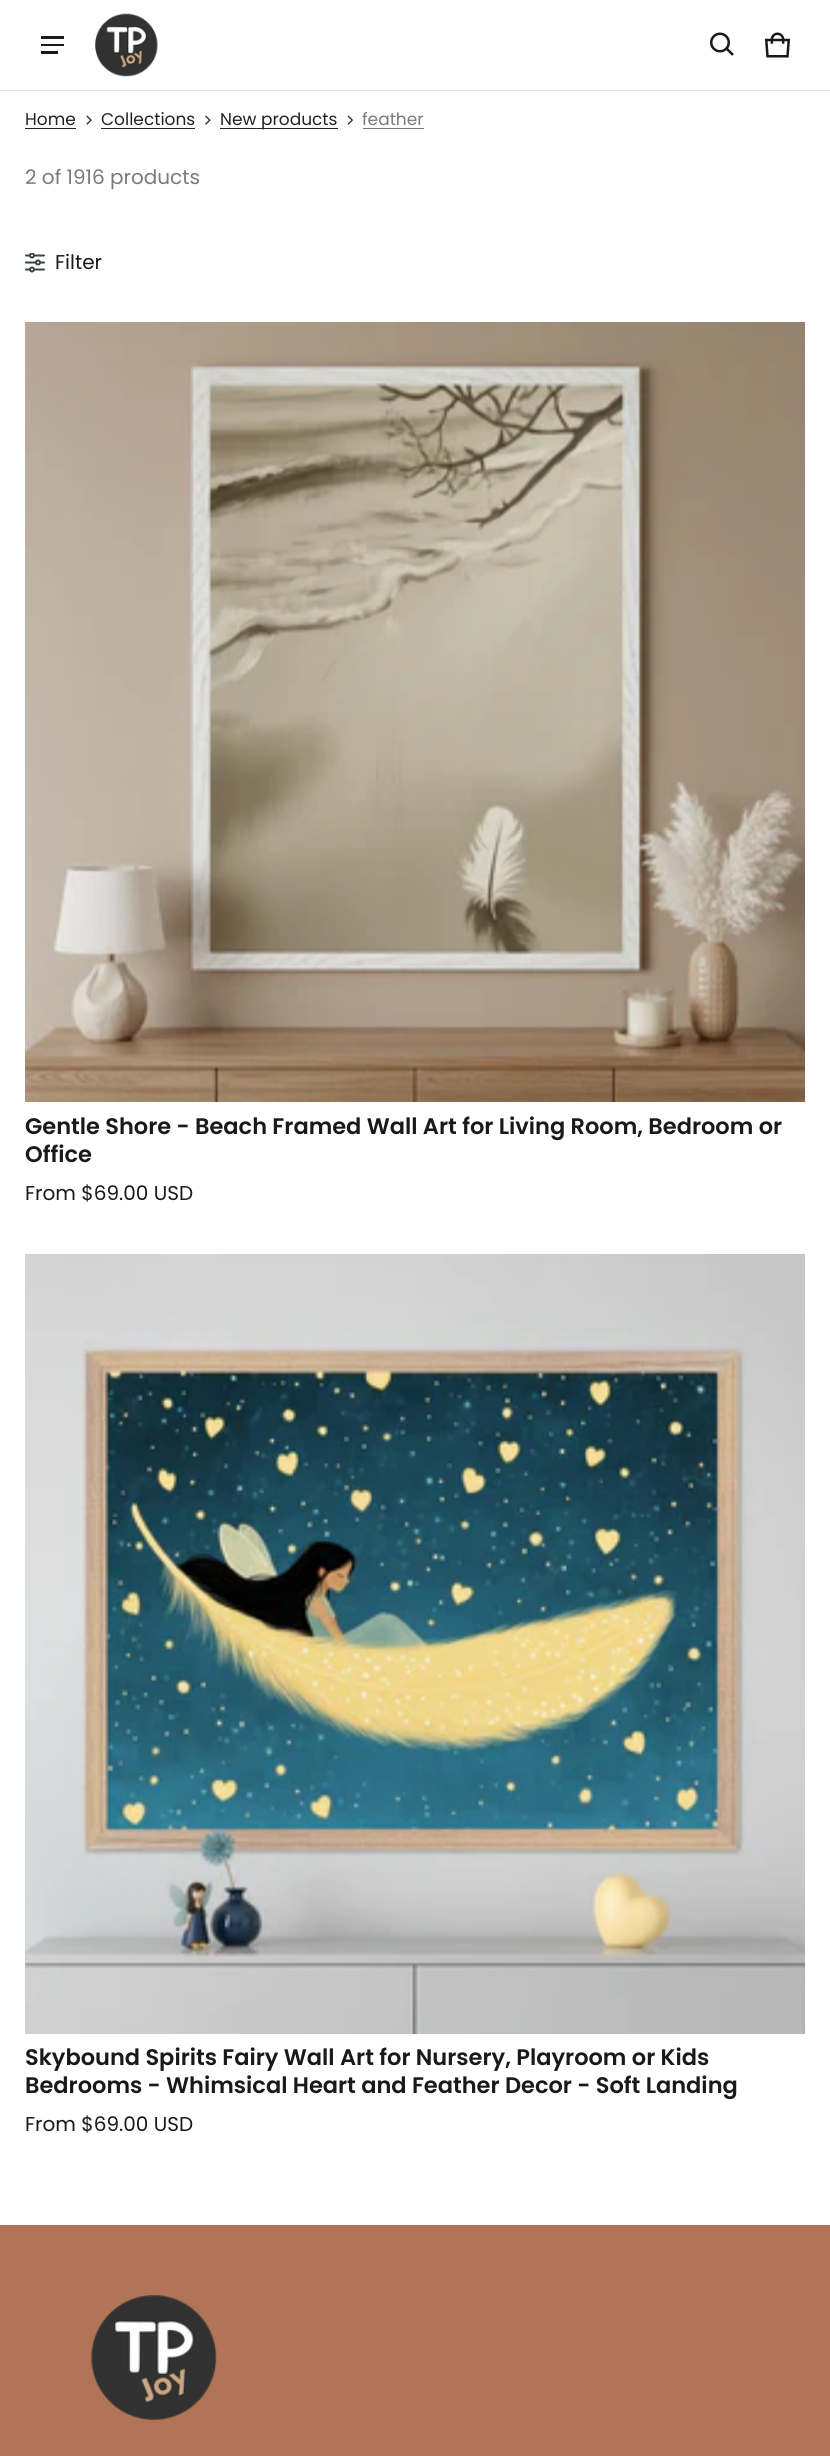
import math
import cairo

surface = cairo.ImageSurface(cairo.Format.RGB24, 830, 2456)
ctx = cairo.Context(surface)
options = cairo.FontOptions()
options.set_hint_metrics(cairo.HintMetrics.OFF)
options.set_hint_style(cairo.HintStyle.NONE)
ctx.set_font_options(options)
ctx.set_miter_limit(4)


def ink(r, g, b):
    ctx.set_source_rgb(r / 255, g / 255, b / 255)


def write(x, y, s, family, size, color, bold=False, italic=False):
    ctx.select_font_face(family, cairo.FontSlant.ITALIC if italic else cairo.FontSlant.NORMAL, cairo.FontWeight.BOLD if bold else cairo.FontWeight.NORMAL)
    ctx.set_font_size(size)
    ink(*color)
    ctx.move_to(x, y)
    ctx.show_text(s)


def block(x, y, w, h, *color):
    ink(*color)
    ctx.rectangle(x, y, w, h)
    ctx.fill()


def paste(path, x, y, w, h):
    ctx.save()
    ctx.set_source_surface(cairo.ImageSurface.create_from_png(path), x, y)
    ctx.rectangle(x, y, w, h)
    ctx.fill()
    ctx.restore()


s1 = dict(family="Poppins", size=17, color=(34, 34, 34))
s2 = dict(family="Poppins", size=17, color=(122, 122, 122))
s3 = dict(family="Poppins", size=20, color=(122, 122, 122))
s4 = dict(family="Poppins", size=20, color=(25, 25, 25))
s5 = dict(family="Poppins SemiBold", size=22.5, color=(25, 25, 25))

ink(255, 255, 255)
ctx.paint()
block(0, 90, 830, 1, 227, 227, 227)
block(41, 36, 23, 3, 25, 25, 25)
block(41, 44, 23, 2, 25, 25, 25)
block(41, 51, 17, 3, 25, 25, 25)
paste("pic1.png", 95, 13, 63, 64)
paste("pic2.png", 710, 32, 24, 24)
paste("pic3.png", 764, 32, 27, 26)
write(25, 125, "Home", **s1)
block(25, 128, 51, 1, 34, 34, 34)
paste("pic4.png", 86, 115, 6, 10)
write(101, 125, "Collections", **s1)
block(101, 128, 94, 1, 34, 34, 34)
paste("pic5.png", 205, 115, 6, 10)
block(220, 128, 118, 1, 34, 34, 34)
write(220, 125, "New products", **s1)
paste("pic6.png", 347, 115, 6, 10)
write(362, 125, "feather", **s2)
block(363, 128, 61, 1, 122, 122, 122)
write(25, 184, "2 of 1916 products", **s3)
paste("pic7.png", 25, 253, 20, 20)
write(55, 269, "Filter", **s4)
paste("pic8.png", 25, 322, 780, 780)
write(25, 1134, "Gentle Shore - Beach Framed Wall Art for Living Room, Bedroom or", **s5)
write(25, 1162, "Office", **s5)
write(25, 1200, "From $69.00 USD", **s4)
paste("pic9.png", 25, 1254, 780, 780)
write(25, 2065, "Skybound Spirits Fairy Wall Art for Nursery, Playroom or Kids", **s5)
write(25, 2093, "Bedrooms - Whimsical Heart and Feather Decor - Soft Landing", **s5)
write(25, 2131, "From $69.00 USD", **s4)
block(0, 2225, 830, 231, 178, 116, 87)
paste("pic10.png", 91, 2295, 126, 125)
surface.write_to_png("screenshot.png")
